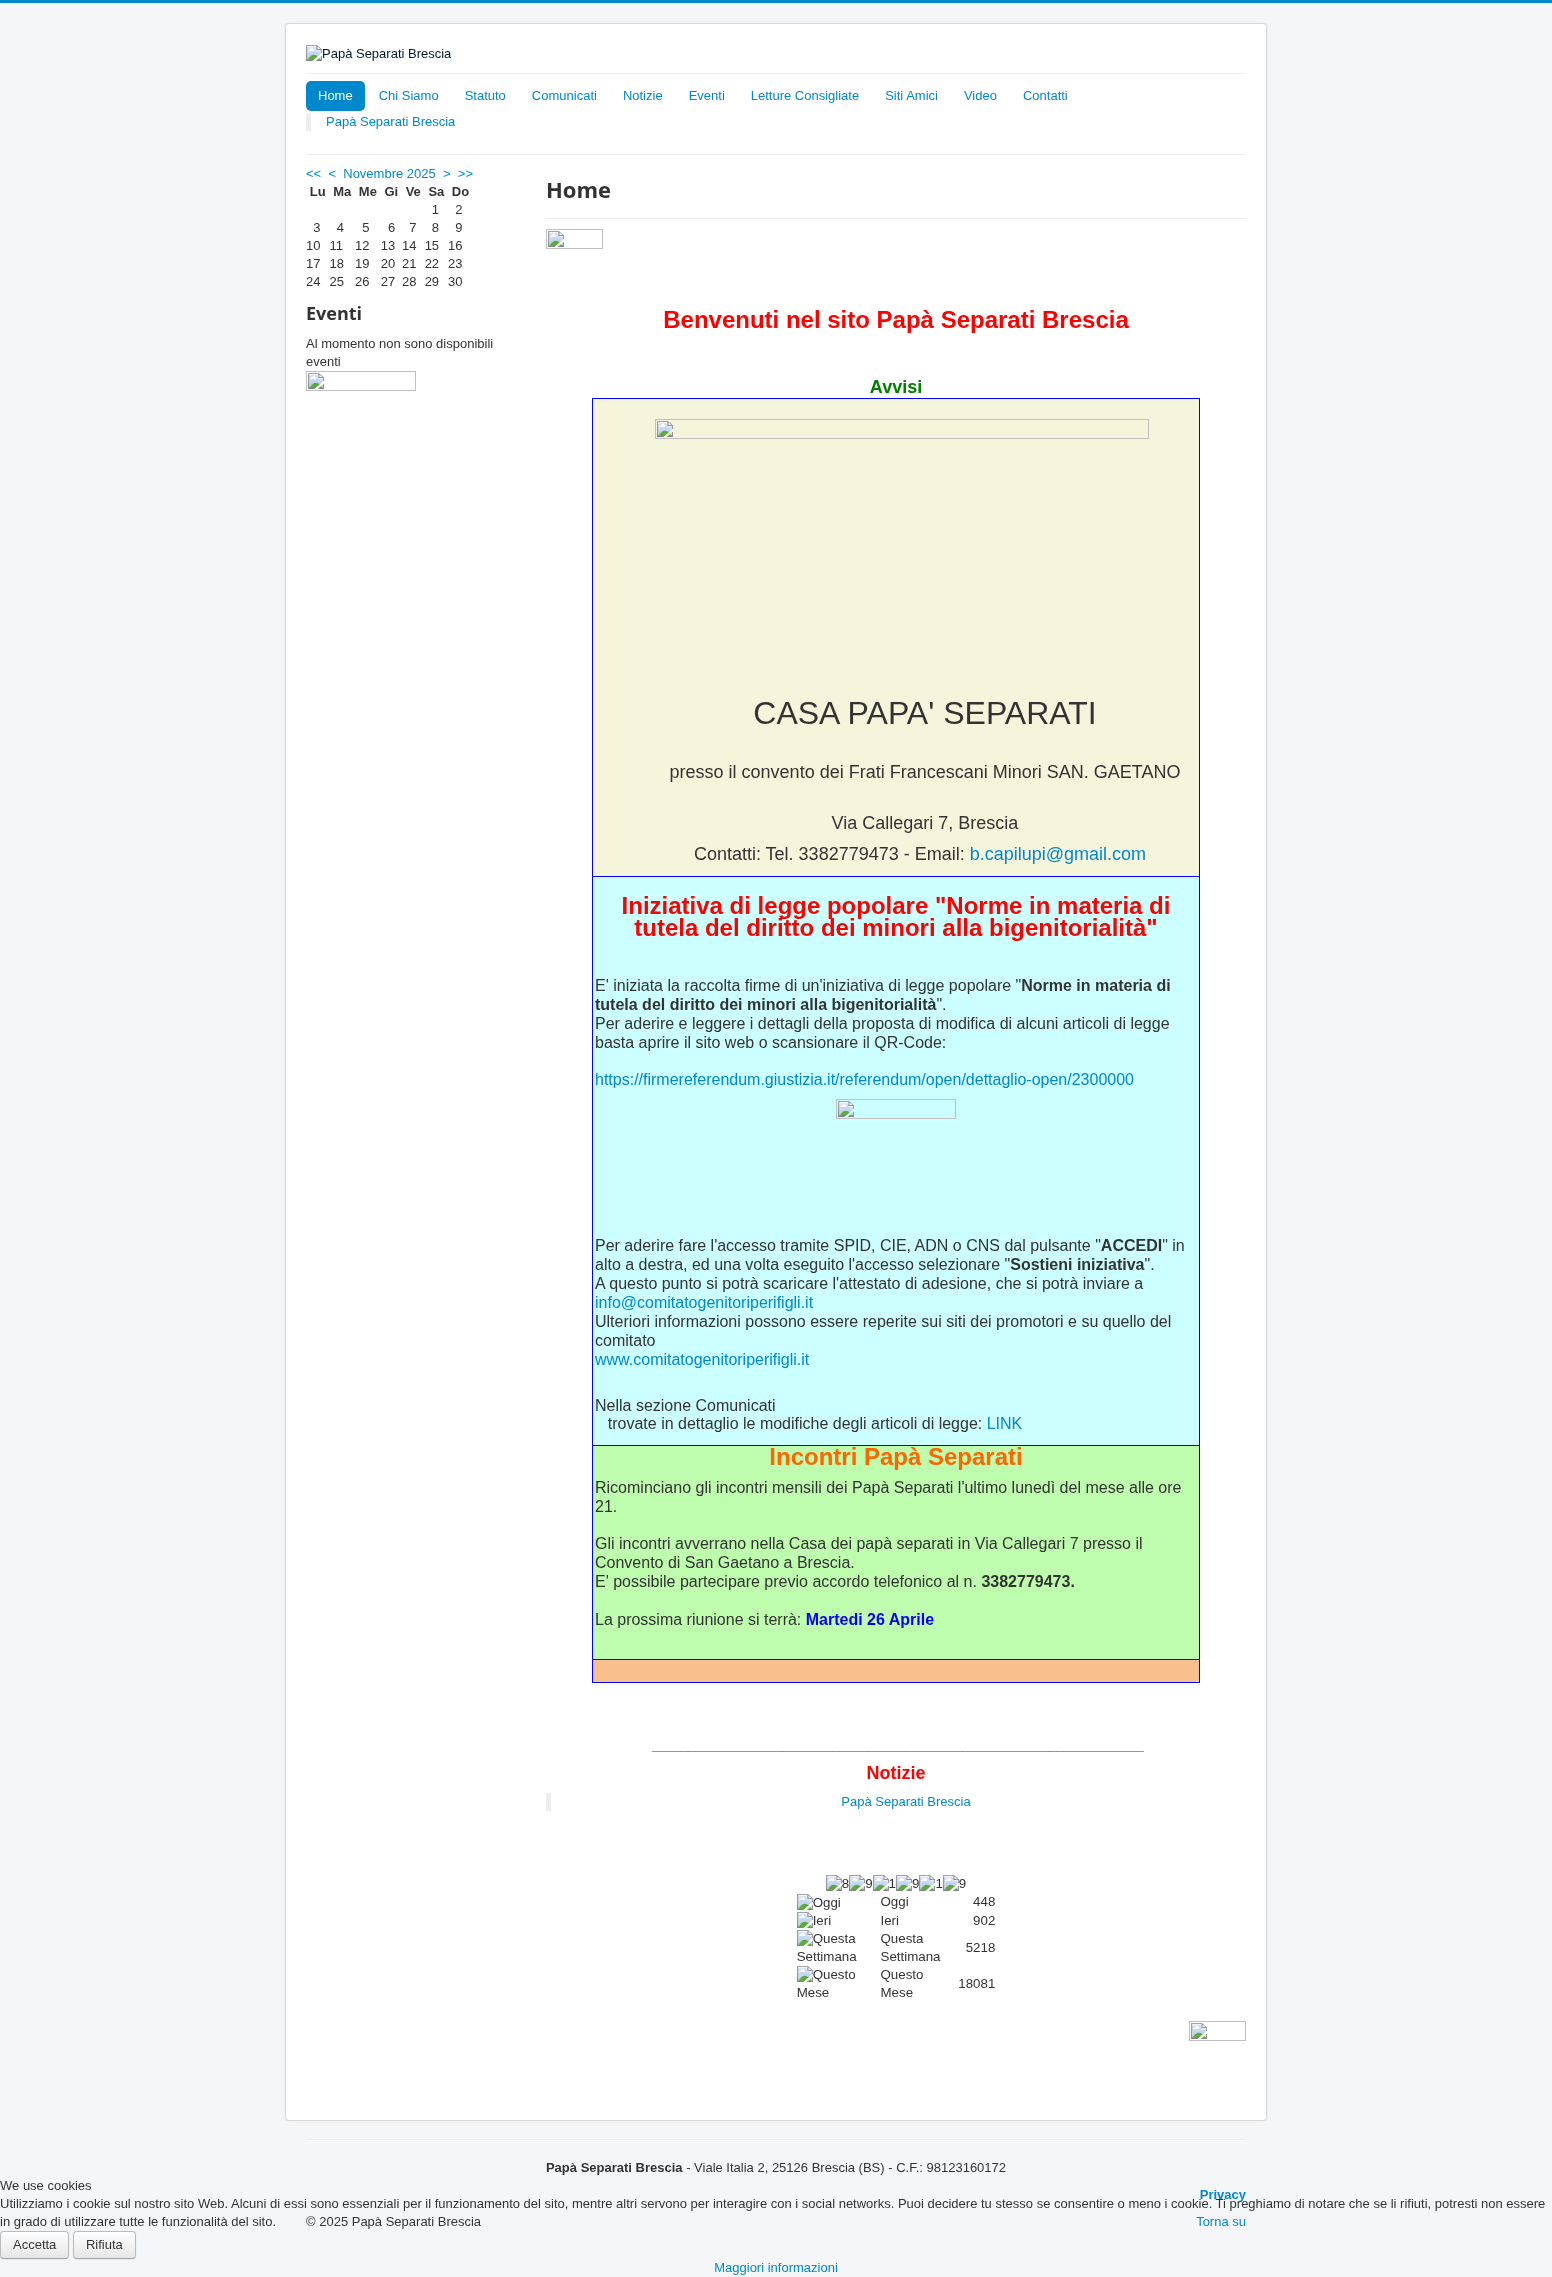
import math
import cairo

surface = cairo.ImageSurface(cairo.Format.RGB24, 1552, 2277)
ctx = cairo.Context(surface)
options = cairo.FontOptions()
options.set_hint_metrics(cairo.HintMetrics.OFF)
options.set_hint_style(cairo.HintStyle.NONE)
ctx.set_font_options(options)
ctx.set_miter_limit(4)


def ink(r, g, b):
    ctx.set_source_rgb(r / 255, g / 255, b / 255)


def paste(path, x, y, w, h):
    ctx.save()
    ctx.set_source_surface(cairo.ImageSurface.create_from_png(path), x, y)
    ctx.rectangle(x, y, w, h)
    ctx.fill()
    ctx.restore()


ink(255, 255, 255)
ctx.paint()
paste("pic1.png", 0, 0, 1552, 2277)
surface.write_to_png("screenshot.png")
